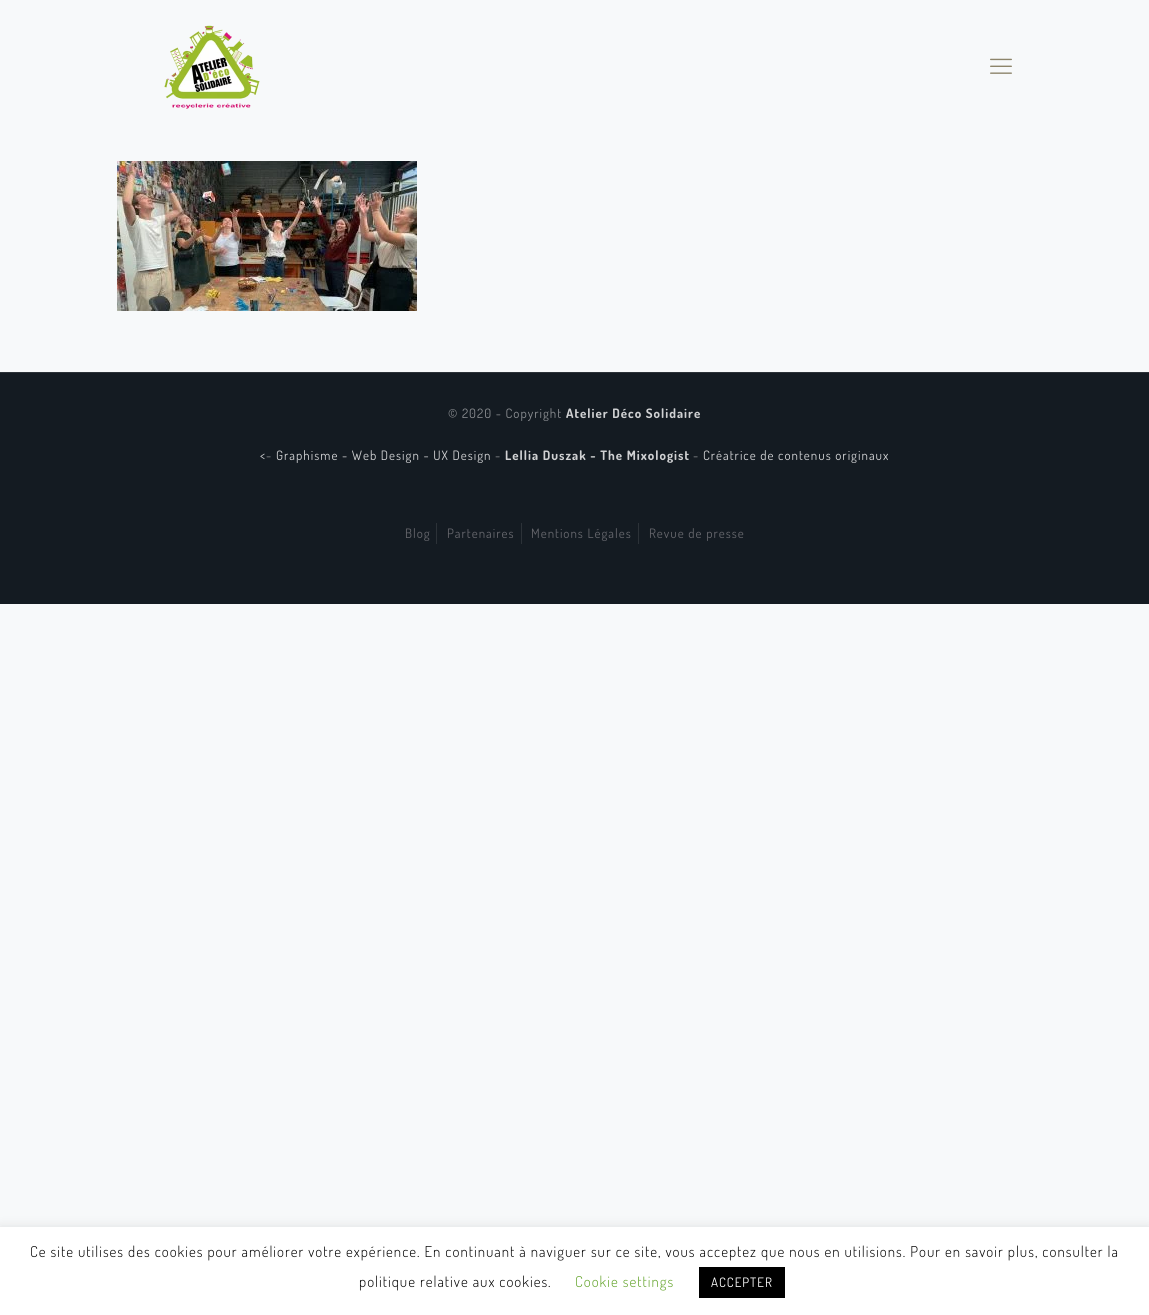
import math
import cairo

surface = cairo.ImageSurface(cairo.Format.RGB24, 1149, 1315)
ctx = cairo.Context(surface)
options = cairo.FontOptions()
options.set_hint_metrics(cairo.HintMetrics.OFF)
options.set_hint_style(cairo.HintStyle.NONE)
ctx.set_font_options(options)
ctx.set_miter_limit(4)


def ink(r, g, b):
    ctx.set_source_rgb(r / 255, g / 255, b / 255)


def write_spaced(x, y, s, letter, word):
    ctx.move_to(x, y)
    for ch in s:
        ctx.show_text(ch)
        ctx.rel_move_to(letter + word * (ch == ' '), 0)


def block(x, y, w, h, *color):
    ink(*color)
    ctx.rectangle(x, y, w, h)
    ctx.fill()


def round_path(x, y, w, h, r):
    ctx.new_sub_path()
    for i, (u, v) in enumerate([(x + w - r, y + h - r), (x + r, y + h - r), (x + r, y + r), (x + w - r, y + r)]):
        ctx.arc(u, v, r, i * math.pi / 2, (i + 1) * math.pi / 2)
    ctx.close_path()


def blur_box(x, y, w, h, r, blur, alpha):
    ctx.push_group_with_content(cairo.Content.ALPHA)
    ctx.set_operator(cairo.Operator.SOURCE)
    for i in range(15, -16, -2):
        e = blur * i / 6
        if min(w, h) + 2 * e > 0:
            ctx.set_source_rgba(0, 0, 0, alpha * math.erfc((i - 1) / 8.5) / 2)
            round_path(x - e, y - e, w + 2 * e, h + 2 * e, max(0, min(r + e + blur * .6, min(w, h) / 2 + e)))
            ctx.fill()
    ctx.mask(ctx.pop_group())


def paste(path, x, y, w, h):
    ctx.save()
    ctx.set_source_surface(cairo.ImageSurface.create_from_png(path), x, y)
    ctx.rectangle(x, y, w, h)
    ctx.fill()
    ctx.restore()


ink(247, 249, 250)
ctx.paint()
paste("pic1.png", 164, 25, 96, 84)
paste("pic2.png", 990, 58, 22, 16)
paste("pic3.png", 117, 161, 300, 150)
block(0, 373, 1149, 231, 20, 27, 34)
block(0, 372, 1149, 1, 44, 50, 56)
ctx.select_font_face("Dosis")
ctx.set_font_size(13)
ink(138, 141, 145)
write_spaced(448, 418, "© 2020 - Copyright", 1, 0)
ctx.select_font_face("Dosis", cairo.FontSlant.NORMAL, cairo.FontWeight.BOLD)
ink(208, 209, 211)
write_spaced(566, 418, "Atelier Déco Solidaire", 1, 0)
ctx.select_font_face("Dosis")
write_spaced(260, 460, "<", 1, 0)
ink(138, 141, 145)
write_spaced(266, 460, "-", 1, 0)
ink(208, 209, 211)
write_spaced(276, 460, "Graphisme - Web Design - UX Design", 1, 0)
ink(138, 141, 145)
write_spaced(495, 460, "-", 1, 0)
ctx.select_font_face("Dosis", cairo.FontSlant.NORMAL, cairo.FontWeight.BOLD)
ink(208, 209, 211)
write_spaced(505, 460, "Lellia Duszak - The Mixologist", 1, 0)
ctx.select_font_face("Dosis")
ink(138, 141, 145)
write_spaced(693, 460, "-", 1, 0)
ink(208, 209, 211)
write_spaced(703, 460, "Créatrice de contenus originaux", 1, 0)
block(436, 523, 1, 21, 44, 50, 56)
ink(101, 102, 108)
write_spaced(405, 538, "Blog", 1, 0)
block(521, 523, 1, 21, 44, 50, 56)
ink(101, 102, 108)
write_spaced(447, 538, "Partenaires", 1, 0)
block(638, 523, 1, 21, 44, 50, 56)
ink(101, 102, 108)
write_spaced(531, 538, "Mentions Légales", 1, 0)
write_spaced(649, 538, "Revue de presse", 1, 0)
ink(172, 171, 171)
blur_box(0, 1226, 1149, 88, 0, 5, 0.3)
block(0, 1227, 1149, 88, 255, 255, 255)
ctx.select_font_face("Dosis Light")
ctx.set_font_size(15)
ink(0, 0, 0)
write_spaced(30, 1257, "Ce site utilises des cookies pour améliorer votre expérience. En continuant à naviguer sur ce site, vous acceptez que nous en utilisions. Pour en savoir plus, consulter la", 1, 0)
write_spaced(359, 1287, "politique relative aux cookies.", 1, 0)
ink(98, 163, 41)
write_spaced(575, 1287, "Cookie settings", 1, 0)
block(699, 1267, 86, 31, 0, 0, 0)
ctx.select_font_face("Dosis")
ctx.set_font_size(13)
ink(255, 255, 255)
write_spaced(711, 1287, "ACCEPTER", 1, 0)
surface.write_to_png("screenshot.png")
